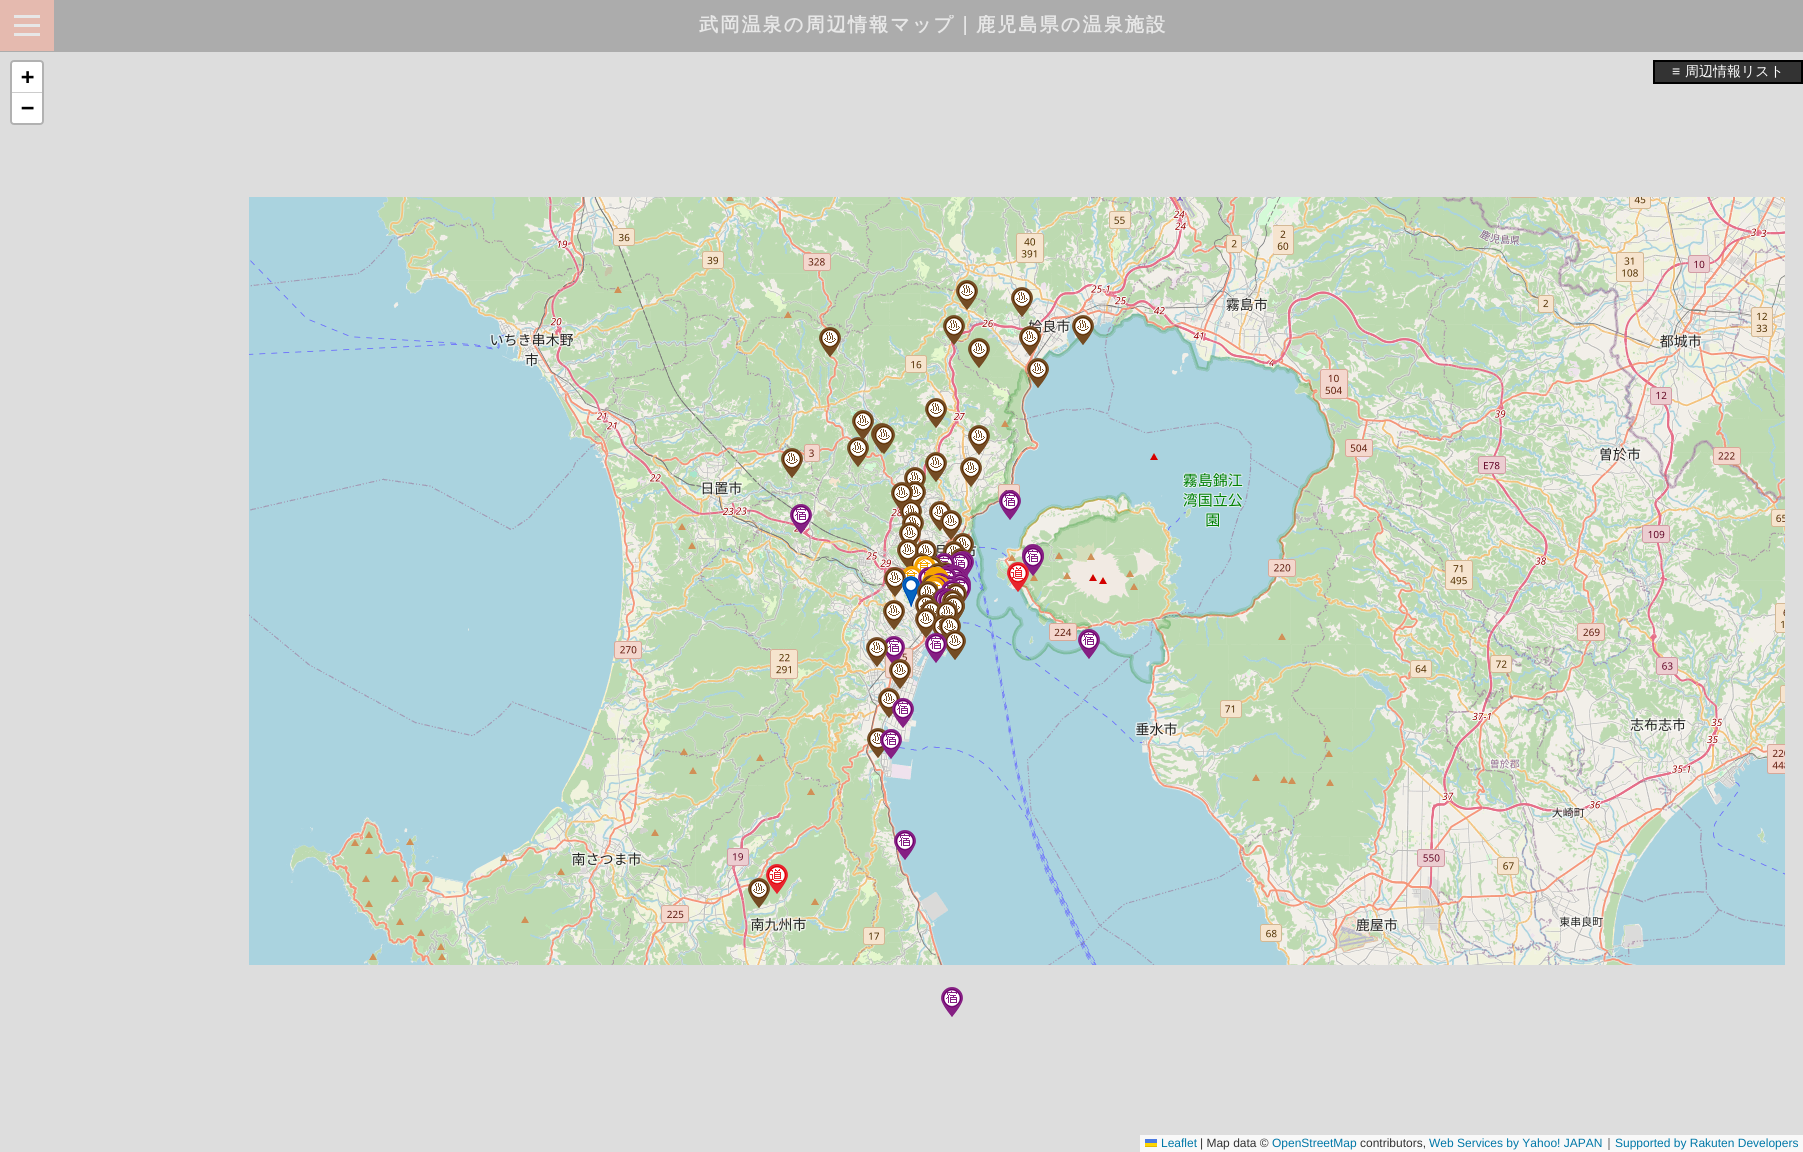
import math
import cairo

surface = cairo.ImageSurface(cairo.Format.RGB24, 1803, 1152)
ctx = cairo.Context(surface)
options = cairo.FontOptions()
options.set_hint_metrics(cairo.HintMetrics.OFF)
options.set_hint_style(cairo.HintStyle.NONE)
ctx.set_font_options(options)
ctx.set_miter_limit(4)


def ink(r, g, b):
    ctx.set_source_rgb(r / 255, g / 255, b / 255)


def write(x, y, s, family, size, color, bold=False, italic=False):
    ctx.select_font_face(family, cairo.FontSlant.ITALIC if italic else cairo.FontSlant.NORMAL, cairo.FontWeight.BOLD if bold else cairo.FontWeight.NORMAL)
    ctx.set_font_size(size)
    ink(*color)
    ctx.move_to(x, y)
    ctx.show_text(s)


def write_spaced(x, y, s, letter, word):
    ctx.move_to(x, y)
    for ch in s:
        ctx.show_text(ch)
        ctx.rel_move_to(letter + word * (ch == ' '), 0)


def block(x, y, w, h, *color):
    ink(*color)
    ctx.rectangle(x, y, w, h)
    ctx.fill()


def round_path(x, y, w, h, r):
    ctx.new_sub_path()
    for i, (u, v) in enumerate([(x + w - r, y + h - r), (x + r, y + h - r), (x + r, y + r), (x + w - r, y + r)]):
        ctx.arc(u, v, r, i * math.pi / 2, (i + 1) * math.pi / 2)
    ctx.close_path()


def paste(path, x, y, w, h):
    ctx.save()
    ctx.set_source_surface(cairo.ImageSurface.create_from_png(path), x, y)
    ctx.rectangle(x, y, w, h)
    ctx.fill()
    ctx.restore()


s1 = dict(family="Liberation Sans", size=14, color=(255, 255, 255))
s2 = dict(family="WenQuanYi Zen Hei Medium", size=14, color=(255, 255, 255))
s3 = dict(family="DejaVu Sans Mono", size=22, color=(0, 0, 0), bold=True)
s4 = dict(family="Liberation Sans", size=12, color=(0, 120, 168))
s5 = dict(family="Liberation Sans", size=12, color=(51, 51, 51))
s6 = dict(family="WenQuanYi Zen Hei Medium", size=12, color=(51, 51, 51))

ink(221, 221, 221)
ctx.paint()
block(0, 0, 1803, 52, 172, 172, 172)
block(0, 0, 54, 51, 229, 186, 175)
block(14, 24, 26, 3, 231, 231, 231)
block(14, 15, 26, 3, 231, 231, 231)
block(14, 33, 26, 3, 231, 231, 231)
ctx.save()
ctx.rectangle(699, 15, 467, 20)
ctx.clip()
ctx.select_font_face("WenQuanYi Zen Hei", cairo.FontSlant.NORMAL, cairo.FontWeight.BOLD)
ctx.set_font_size(19.2)
write_spaced(699, 31, "武岡温泉の周辺情報マップ｜鹿児島県の温泉施設", 2, 0)
ctx.restore()
ink(51, 51, 51)
ctx.rectangle(1654, 61, 148, 22)
ctx.fill_preserve()
ink(0, 0, 0)
ctx.stroke()
write(1672, 76, "≡", **s1)
write(1685, 76, "周辺情報リスト", **s2)
round_path(11, 61, 32, 63, 3)
ink(177, 177, 177)
ctx.stroke()
ink(255, 255, 255)
ctx.new_path()
ctx.move_to(14, 62)
ctx.line_to(40, 62)
ctx.curve_to(41, 62, 42, 63, 42, 64)
ctx.line_to(42, 93)
ctx.line_to(12, 93)
ctx.line_to(12, 64)
ctx.curve_to(12, 63, 13, 62, 14, 62)
ctx.close_path()
ctx.fill()
block(12, 92, 30, 1, 204, 204, 204)
write(21, 84, "+", **s3)
ink(255, 255, 255)
ctx.new_path()
ctx.move_to(12, 93)
ctx.line_to(42, 93)
ctx.line_to(42, 121)
ctx.curve_to(42, 122, 41, 123, 40, 123)
ctx.line_to(14, 123)
ctx.curve_to(13, 123, 12, 122, 12, 121)
ctx.close_path()
ctx.fill()
write(21, 115, "−", **s3)
block(1140, 1135, 663, 17, 248, 248, 248)
write(1161, 1147, "Leaflet", **s4)
block(1145, 1139, 12, 4, 76, 123, 225)
block(1145, 1143, 12, 3, 255, 213, 0)
block(1145, 1146, 12, 1, 224, 188, 0)
write(1200, 1147, "| Map data ©", **s5)
write(1272, 1147, "OpenStreetMap", **s4)
write(1360, 1147, "contributors,", **s5)
write(1429, 1147, "Web Services by Yahoo! JAPAN", **s4)
write(1603, 1147, "｜", **s6)
write(1615, 1147, "Supported by Rakuten Developers", **s4)
paste("pic1.png", 249, 197, 256, 256)
paste("pic2.png", 505, 197, 256, 256)
paste("pic3.png", 761, 197, 256, 256)
paste("pic4.png", 1017, 197, 256, 256)
paste("pic5.png", 1273, 197, 256, 256)
paste("pic6.png", 1529, 197, 256, 256)
paste("pic7.png", 249, 453, 256, 256)
paste("pic8.png", 505, 453, 256, 256)
paste("pic9.png", 761, 453, 256, 256)
paste("pic10.png", 1017, 453, 256, 256)
paste("pic11.png", 1273, 453, 256, 256)
paste("pic12.png", 1529, 453, 256, 256)
paste("pic13.png", 249, 709, 256, 256)
paste("pic14.png", 505, 709, 256, 256)
paste("pic15.png", 761, 709, 256, 256)
paste("pic16.png", 1017, 709, 256, 256)
paste("pic17.png", 1273, 709, 256, 256)
paste("pic18.png", 1529, 709, 256, 256)
paste("pic19.png", 956, 280, 22, 30)
paste("pic20.png", 1011, 287, 22, 30)
paste("pic21.png", 819, 327, 22, 30)
paste("pic22.png", 943, 315, 22, 30)
paste("pic23.png", 968, 338, 22, 30)
paste("pic24.png", 1019, 326, 22, 30)
paste("pic25.png", 1072, 315, 22, 30)
paste("pic26.png", 1027, 358, 22, 30)
paste("pic27.png", 852, 410, 22, 29)
paste("pic28.png", 871, 423, 19, 30)
paste("pic29.png", 925, 398, 22, 30)
paste("pic30.png", 781, 448, 22, 30)
paste("pic31.png", 847, 437, 22, 30)
paste("pic32.png", 873, 424, 22, 30)
paste("pic33.png", 925, 452, 22, 30)
paste("pic34.png", 968, 425, 22, 30)
paste("pic35.png", 904, 467, 22, 19)
paste("pic36.png", 960, 457, 22, 30)
paste("pic38.png", 907, 481, 19, 24)
paste("pic37.png", 891, 482, 22, 29)
paste("pic39.png", 999, 490, 22, 30)
paste("pic40.png", 790, 504, 22, 30)
paste("pic41.png", 900, 500, 22, 19)
paste("pic42.png", 929, 501, 22, 30)
paste("pic43.png", 902, 512, 22, 21)
paste("pic44.png", 940, 510, 22, 30)
paste("pic45.png", 899, 522, 22, 22)
paste("pic46.png", 952, 533, 22, 21)
paste("pic47.png", 897, 539, 21, 29)
paste("pic48.png", 915, 540, 22, 17)
paste("pic49.png", 943, 541, 22, 15)
paste("pic50.png", 1022, 544, 22, 15)
paste("pic51.png", 950, 548, 22, 9)
paste("pic52.png", 1022, 546, 22, 30)
paste("pic53.png", 955, 551, 19, 25)
paste("pic54.png", 910, 553, 19, 14)
paste("pic56.png", 951, 552, 20, 21)
paste("pic55.png", 935, 553, 20, 13)
paste("pic58.png", 927, 556, 15, 8)
paste("pic57.png", 914, 556, 22, 15)
paste("pic59.png", 939, 562, 14, 4)
paste("pic60.png", 1007, 562, 22, 30)
paste("pic61.png", 929, 563, 17, 5)
paste("pic62.png", 941, 564, 15, 4)
paste("pic63.png", 903, 566, 18, 20)
paste("pic64.png", 947, 565, 17, 4)
paste("pic65.png", 884, 567, 22, 30)
paste("pic66.png", 918, 567, 16, 18)
paste("pic67.png", 950, 566, 18, 11)
paste("pic71.png", 939, 567, 10, 2)
paste("pic74.png", 950, 568, 16, 7)
paste("pic72.png", 941, 567, 15, 10)
paste("pic69.png", 927, 567, 18, 4)
paste("pic70.png", 932, 567, 16, 8)
paste("pic68.png", 924, 567, 19, 9)
paste("pic75.png", 931, 569, 15, 3)
paste("pic73.png", 932, 568, 17, 9)
paste("pic76.png", 924, 570, 19, 6)
paste("pic77.png", 930, 570, 19, 7)
paste("pic83.png", 942, 573, 7, 4)
paste("pic78.png", 926, 571, 18, 3)
paste("pic79.png", 922, 572, 19, 10)
paste("pic80.png", 925, 573, 16, 5)
paste("pic81.png", 932, 573, 17, 5)
paste("pic82.png", 921, 575, 16, 9)
paste("pic84.png", 951, 573, 20, 15)
paste("pic85.png", 928, 575, 17, 4)
paste("pic86.png", 902, 576, 18, 32)
paste("pic87.png", 928, 575, 17, 4)
paste("pic89.png", 944, 576, 12, 5)
paste("pic88.png", 934, 576, 15, 7)
paste("pic91.png", 931, 577, 15, 6)
paste("pic92.png", 931, 577, 15, 7)
paste("pic90.png", 925, 577, 19, 6)
paste("pic93.png", 951, 577, 20, 25)
paste("pic94.png", 926, 578, 19, 12)
paste("pic95.png", 941, 580, 20, 9)
paste("pic96.png", 917, 581, 22, 17)
paste("pic98.png", 946, 583, 21, 19)
paste("pic97.png", 932, 588, 16, 11)
paste("pic99.png", 934, 588, 17, 17)
paste("pic100.png", 938, 589, 17, 16)
paste("pic101.png", 915, 594, 22, 19)
paste("pic102.png", 942, 590, 22, 13)
paste("pic103.png", 944, 595, 21, 25)
paste("pic104.png", 883, 600, 22, 30)
paste("pic105.png", 920, 600, 20, 18)
paste("pic106.png", 944, 595, 21, 25)
paste("pic108.png", 936, 601, 22, 17)
paste("pic107.png", 915, 608, 22, 30)
paste("pic109.png", 932, 615, 16, 23)
paste("pic110.png", 939, 615, 22, 23)
paste("pic112.png", 885, 636, 20, 28)
paste("pic111.png", 866, 637, 22, 30)
paste("pic114.png", 944, 630, 22, 30)
paste("pic113.png", 925, 633, 22, 30)
paste("pic115.png", 1078, 629, 22, 30)
paste("pic116.png", 889, 659, 22, 30)
paste("pic117.png", 878, 688, 22, 30)
paste("pic118.png", 892, 698, 22, 30)
paste("pic119.png", 867, 728, 19, 30)
paste("pic120.png", 880, 729, 22, 30)
paste("pic121.png", 894, 830, 22, 30)
paste("pic123.png", 766, 864, 22, 30)
paste("pic122.png", 748, 878, 22, 30)
paste("pic124.png", 941, 987, 22, 30)
surface.write_to_png("screenshot.png")
